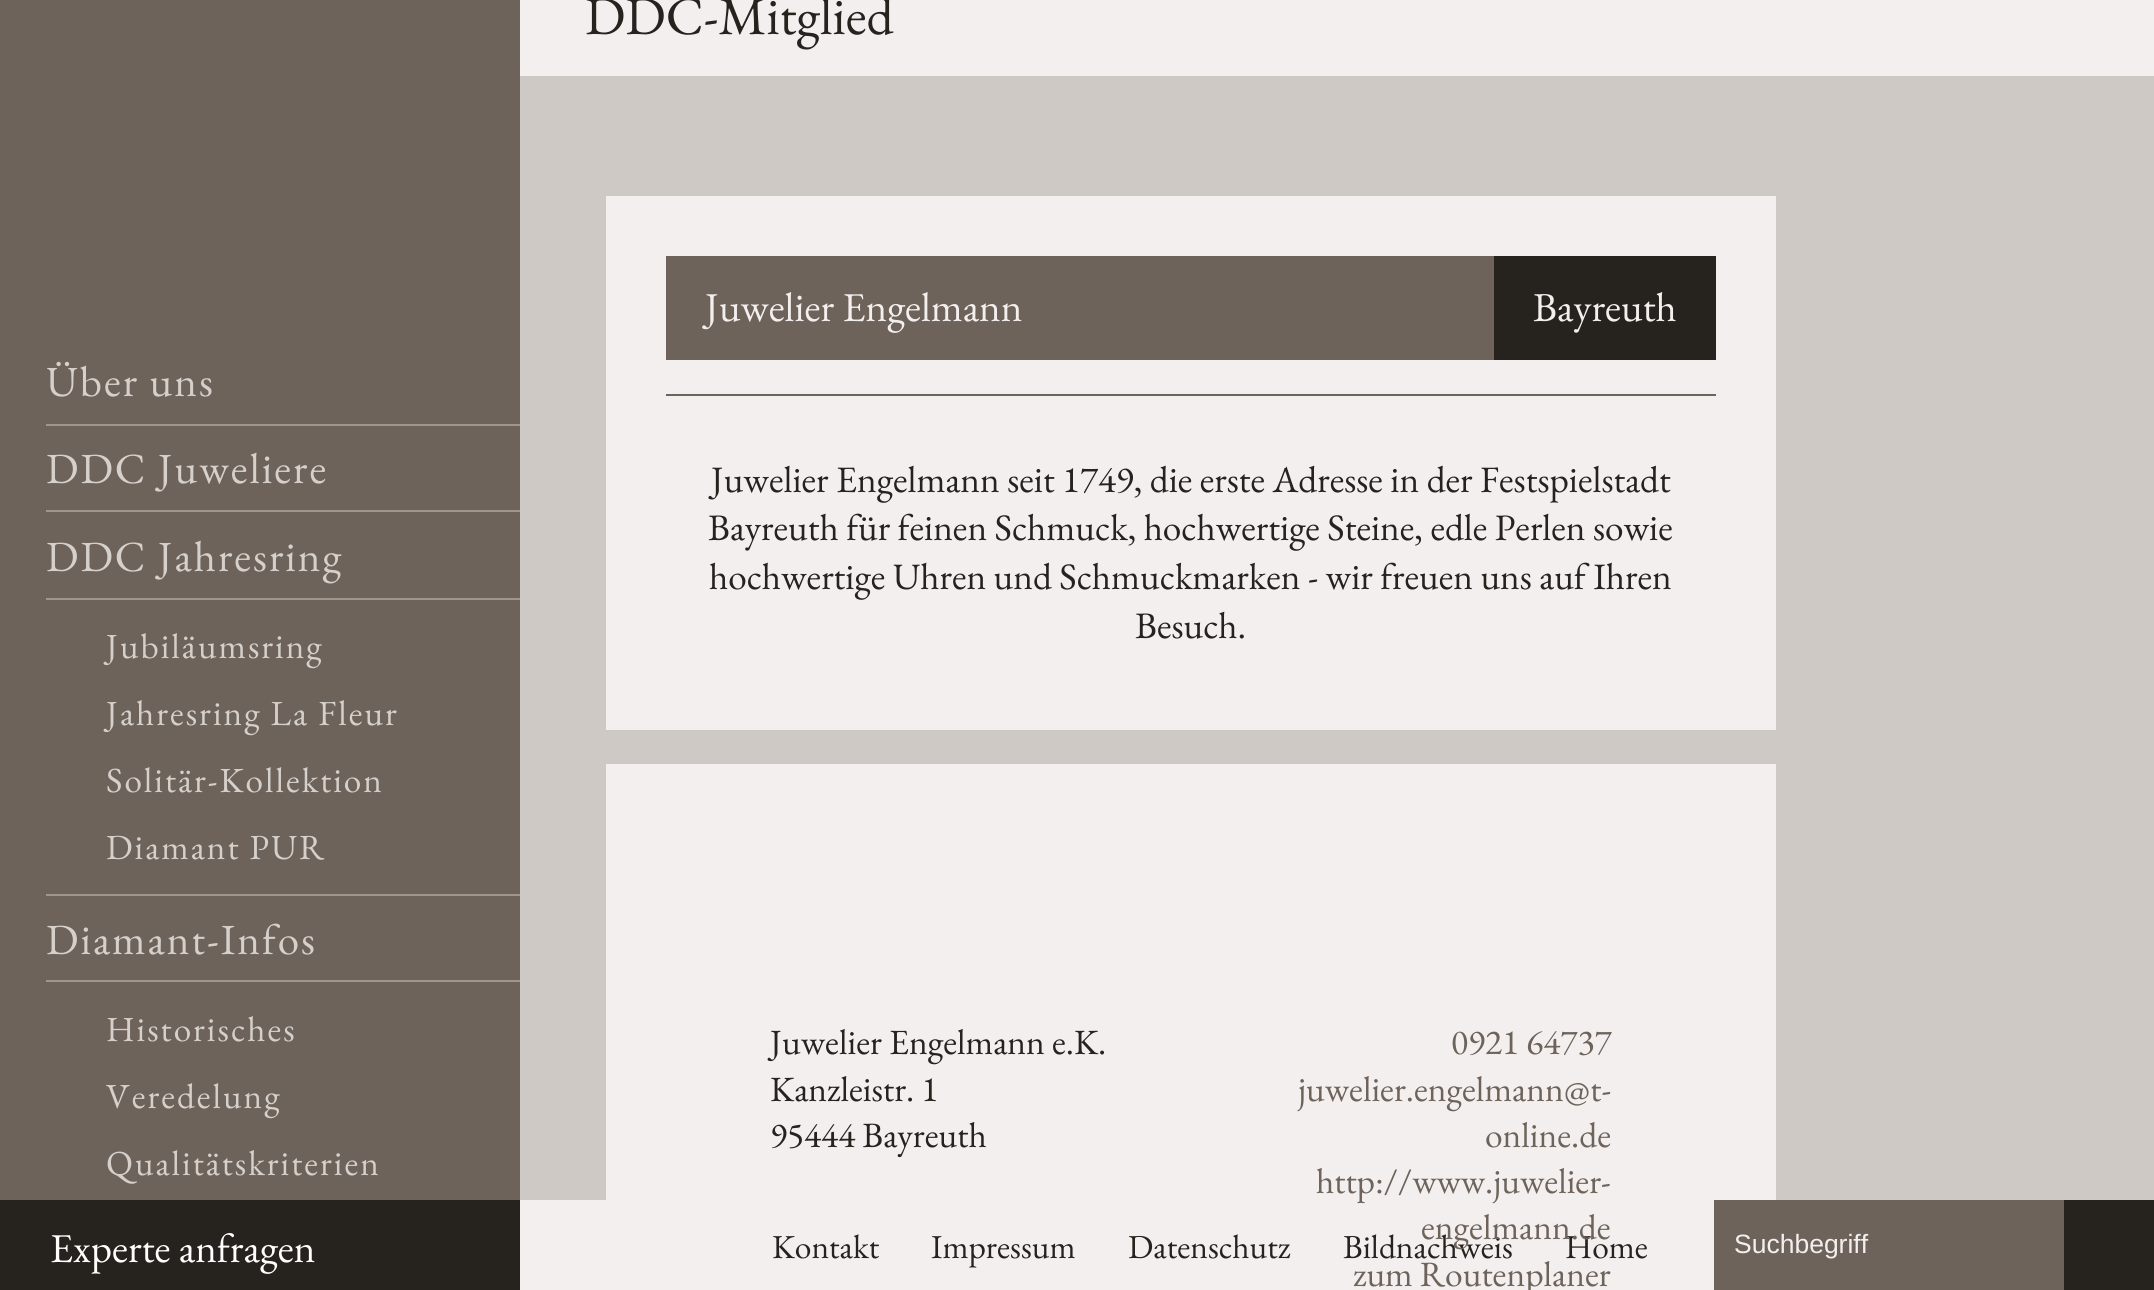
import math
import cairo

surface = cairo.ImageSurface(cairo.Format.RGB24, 2154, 1290)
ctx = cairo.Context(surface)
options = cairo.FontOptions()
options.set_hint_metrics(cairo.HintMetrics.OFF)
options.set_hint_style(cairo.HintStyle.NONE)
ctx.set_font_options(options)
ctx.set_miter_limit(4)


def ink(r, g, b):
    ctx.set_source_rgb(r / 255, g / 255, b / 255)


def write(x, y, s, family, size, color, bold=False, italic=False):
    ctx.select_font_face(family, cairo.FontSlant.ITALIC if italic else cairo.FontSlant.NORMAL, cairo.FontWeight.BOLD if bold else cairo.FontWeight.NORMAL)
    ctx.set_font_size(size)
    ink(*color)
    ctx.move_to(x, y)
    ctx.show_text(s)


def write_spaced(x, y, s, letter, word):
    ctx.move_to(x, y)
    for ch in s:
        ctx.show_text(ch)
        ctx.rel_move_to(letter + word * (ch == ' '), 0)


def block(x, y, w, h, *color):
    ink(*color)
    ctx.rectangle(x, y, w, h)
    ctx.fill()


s1 = dict(family="EB Garamond", size=53.5, color=(38, 34, 30))
s2 = dict(family="EB Garamond", size=41, color=(243, 239, 238))
s3 = dict(family="EB Garamond", size=37.3, color=(38, 34, 30))
s4 = dict(family="EB Garamond", size=35.5, color=(38, 34, 30))
s5 = dict(family="EB Garamond", size=35.5, color=(110, 99, 91))
s6 = dict(family="EB Garamond", size=33.5, color=(38, 34, 30))
s7 = dict(family="Liberation Sans", size=26.5, color=(243, 239, 238))
s8 = dict(family="EB Garamond", size=41, color=(255, 255, 255))

ink(207, 201, 197)
ctx.paint()
block(0, 0, 520, 1200, 110, 99, 91)
block(46, 424, 474, 2, 161, 150, 142)
ctx.select_font_face("EB Garamond")
ctx.set_font_size(43)
ink(213, 208, 204)
write_spaced(46, 396, "Über uns", 2, 0)
block(46, 510, 474, 2, 161, 150, 142)
ink(213, 208, 204)
write_spaced(46, 483, "DDC Juweliere", 2, 0)
block(46, 598, 474, 2, 161, 150, 142)
ink(213, 208, 204)
write_spaced(46, 571, "DDC Jahresring", 2, 0)
block(46, 894, 474, 2, 161, 150, 142)
ctx.set_font_size(35.25)
ink(213, 208, 204)
write_spaced(106, 658, "Jubiläumsring", 2, 0)
write_spaced(106, 725, "Jahresring La Fleur", 2, 0)
write_spaced(106, 792, "Solitär-Kollektion", 2, 0)
write_spaced(106, 859, "Diamant PUR", 2, 0)
block(46, 980, 474, 2, 161, 150, 142)
ctx.set_font_size(43)
ink(213, 208, 204)
write_spaced(46, 954, "Diamant-Infos", 2, 0)
ctx.set_font_size(35.25)
write_spaced(106, 1041, "Historisches", 2, 0)
write_spaced(106, 1108, "Veredelung", 2, 0)
write_spaced(106, 1175, "Qualitätskriterien", 2, 0)
block(520, 0, 1634, 76, 243, 239, 238)
write(585, 34, "DDC-Mitglied", **s1)
block(606, 196, 1170, 534, 243, 239, 238)
block(666, 256, 828, 104, 110, 99, 91)
write(705, 321, "Juwelier Engelmann", **s2)
block(1494, 256, 222, 104, 38, 34, 30)
write(1533, 321, "Bayreuth", **s2)
block(666, 394, 1050, 2, 110, 99, 91)
write(711, 492, "Juwelier Engelmann seit 1749, die erste Adresse in der Festspielstadt", **s3)
write(708, 540, "Bayreuth für feinen Schmuck, hochwertige Steine, edle Perlen sowie", **s3)
write(709, 589, "hochwertige Uhren und Schmuckmarken - wir freuen uns auf Ihren", **s3)
write(1135, 638, "Besuch.", **s3)
block(606, 764, 1170, 436, 243, 239, 238)
write(770, 1054, "Juwelier Engelmann e.K.", **s4)
write(770, 1101, "Kanzleistr. 1", **s4)
write(770, 1147, "95444 Bayreuth", **s4)
write(1451, 1054, "0921 64737", **s5)
write(1298, 1101, "juwelier.engelmann@t-", **s5)
write(1485, 1147, "online.de", **s5)
block(520, 1200, 1194, 90, 243, 239, 238)
write(1316, 1193, "http://www.juwelier-", **s5)
write(1343, 1258, "Bildnachweis", **s6)
write(1565, 1258, "Home", **s6)
write(1421, 1239, "engelmann.de", **s5)
write(1353, 1286, "zum Routenplaner", **s5)
write(772, 1258, "Kontakt", **s6)
write(931, 1258, "Impressum", **s6)
write(1128, 1258, "Datenschutz", **s6)
block(1714, 1200, 350, 90, 110, 99, 91)
write(1734, 1253, "Suchbegriff", **s7)
block(2064, 1200, 90, 90, 38, 34, 30)
block(0, 1200, 520, 90, 38, 34, 30)
write(50, 1262, "Experte anfragen", **s8)
surface.write_to_png("screenshot.png")
